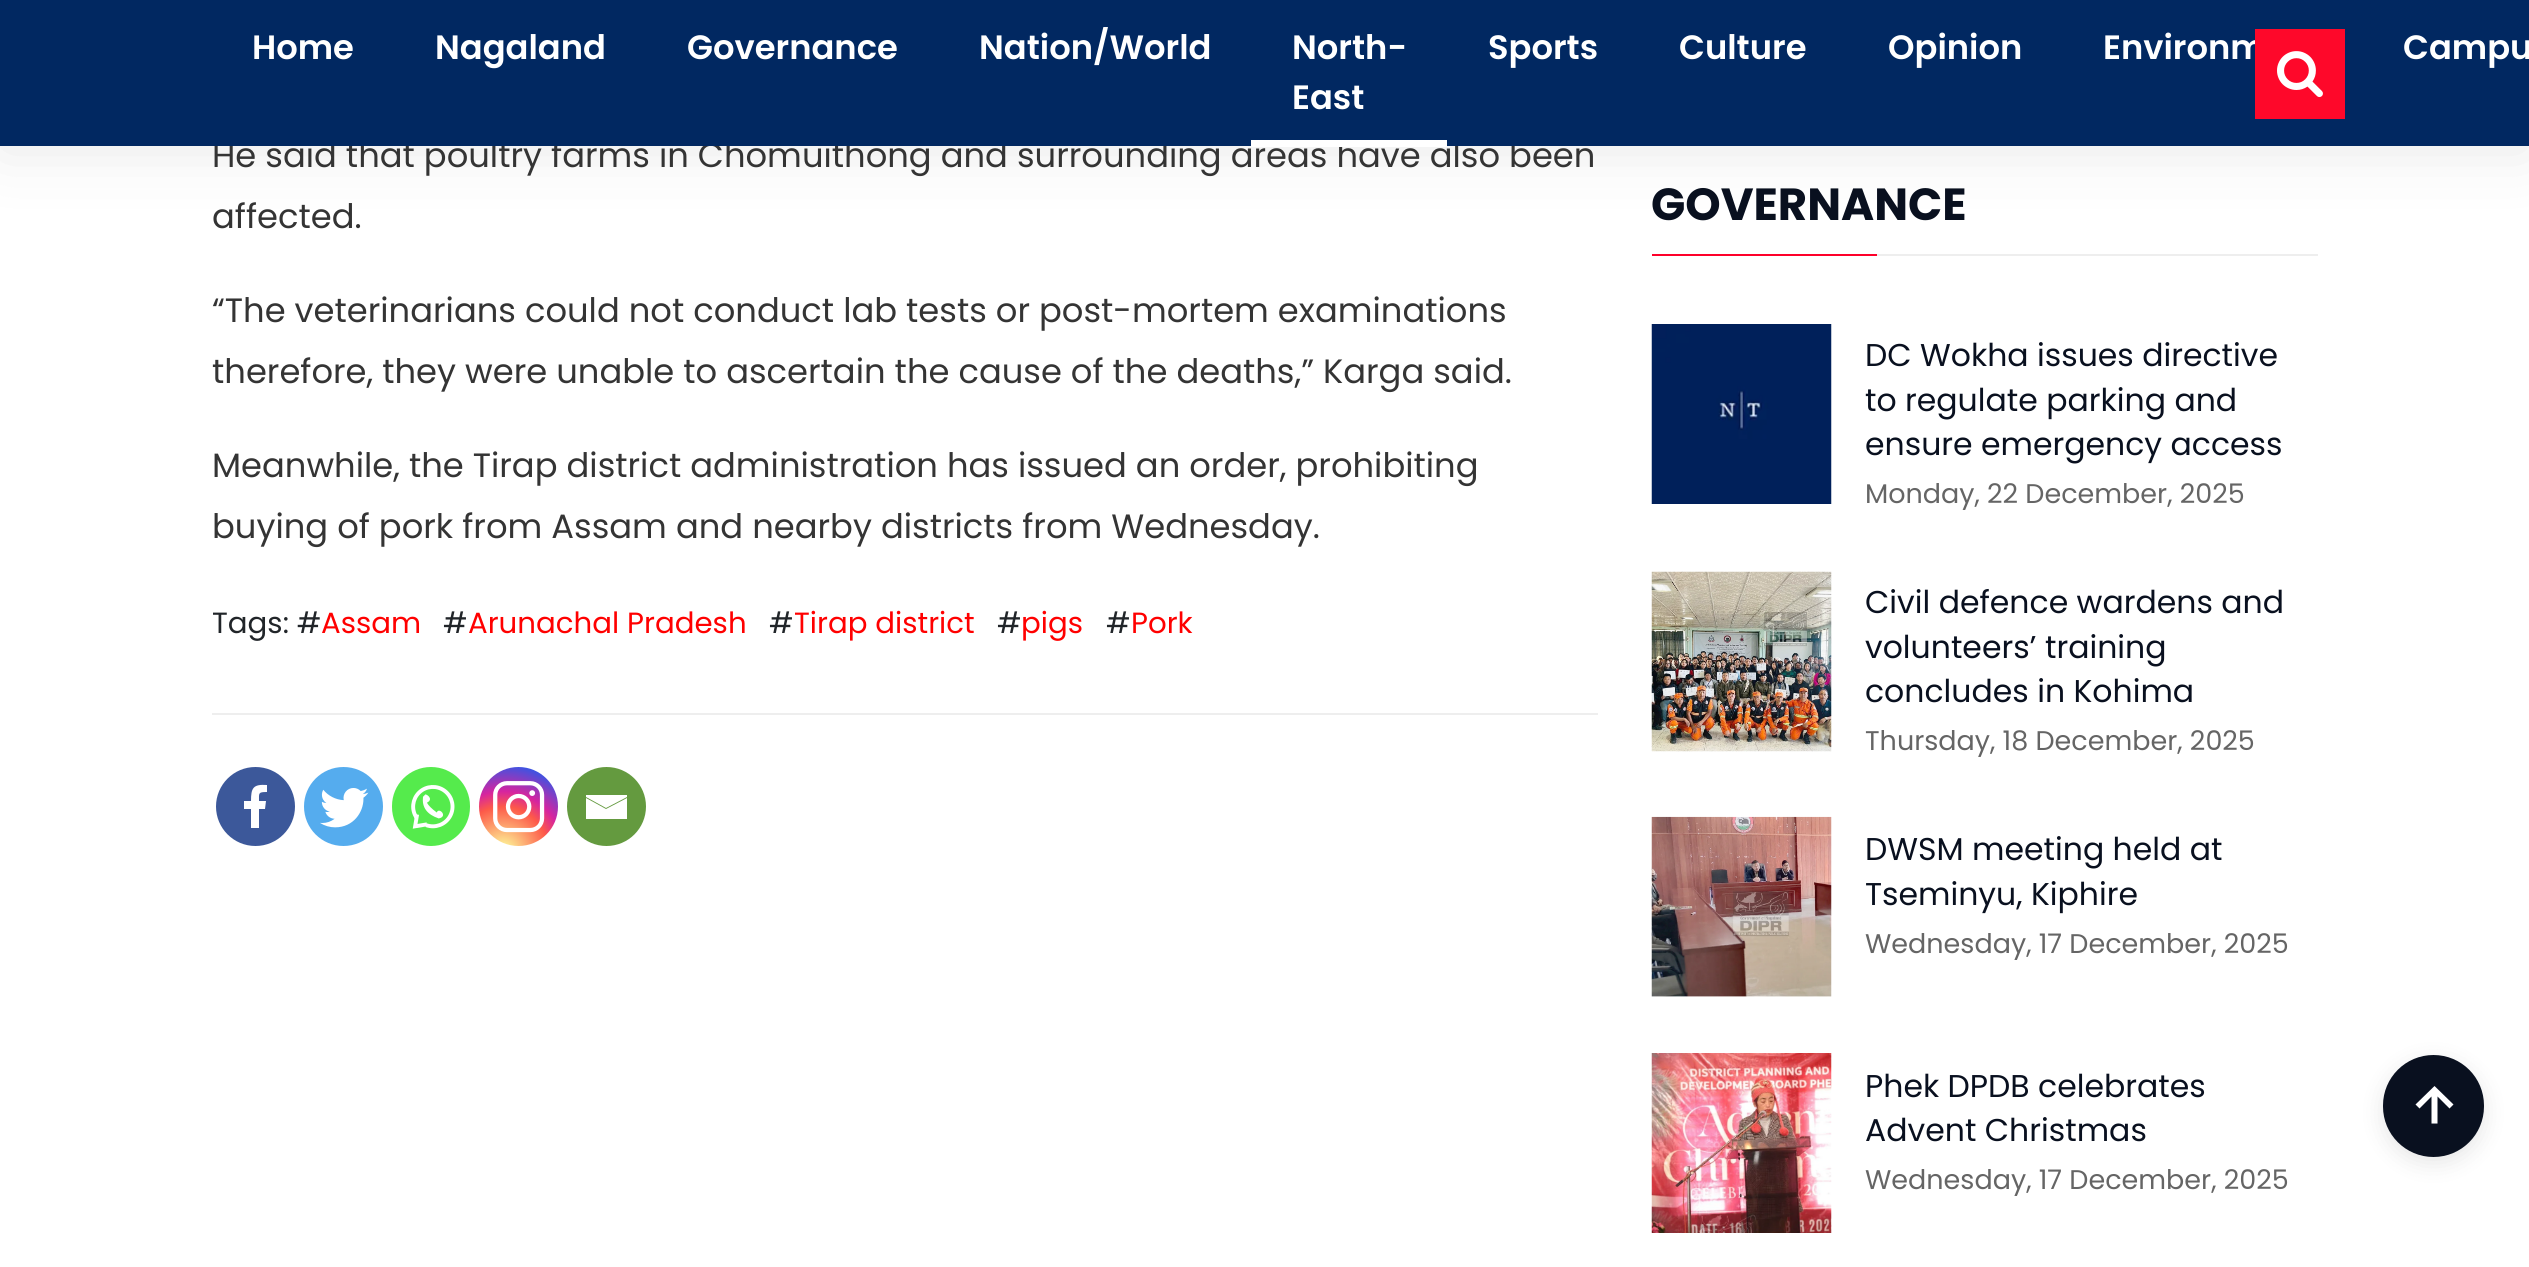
import math
import cairo

surface = cairo.ImageSurface(cairo.Format.RGB24, 2529, 1267)
ctx = cairo.Context(surface)
options = cairo.FontOptions()
options.set_hint_metrics(cairo.HintMetrics.OFF)
options.set_hint_style(cairo.HintStyle.NONE)
ctx.set_font_options(options)
ctx.set_miter_limit(4)


def ink(r, g, b):
    ctx.set_source_rgb(r / 255, g / 255, b / 255)


def write(x, y, s, family, size, color, bold=False, italic=False):
    ctx.select_font_face(family, cairo.FontSlant.ITALIC if italic else cairo.FontSlant.NORMAL, cairo.FontWeight.BOLD if bold else cairo.FontWeight.NORMAL)
    ctx.set_font_size(size)
    ink(*color)
    ctx.move_to(x, y)
    ctx.show_text(s)


def block(x, y, w, h, *color):
    ink(*color)
    ctx.rectangle(x, y, w, h)
    ctx.fill()


def round_path(x, y, w, h, r):
    ctx.new_sub_path()
    for i, (u, v) in enumerate([(x + w - r, y + h - r), (x + r, y + h - r), (x + r, y + r), (x + w - r, y + r)]):
        ctx.arc(u, v, r, i * math.pi / 2, (i + 1) * math.pi / 2)
    ctx.close_path()


def blur_box(x, y, w, h, r, blur, alpha):
    ctx.push_group_with_content(cairo.Content.ALPHA)
    ctx.set_operator(cairo.Operator.SOURCE)
    for i in range(15, -16, -2):
        e = blur * i / 6
        if min(w, h) + 2 * e > 0:
            ctx.set_source_rgba(0, 0, 0, alpha * math.erfc((i - 1) / 8.5) / 2)
            round_path(x - e, y - e, w + 2 * e, h + 2 * e, max(0, min(r + e + blur * .6, min(w, h) / 2 + e)))
            ctx.fill()
    ctx.mask(ctx.pop_group())


def paste(path, x, y, w, h):
    ctx.save()
    ctx.set_source_surface(cairo.ImageSurface.create_from_png(path), x, y)
    ctx.rectangle(x, y, w, h)
    ctx.fill()
    ctx.restore()


s1 = dict(family="Poppins", size=33.75, color=(52, 52, 52))
s2 = dict(family="Poppins SemiBold", size=33.75, color=(255, 255, 255))
s3 = dict(family="Poppins", size=29.25, color=(33, 37, 41))
s4 = dict(family="Poppins", size=29.25, color=(255, 0, 0))
s5 = dict(family="Poppins", size=45, color=(9, 16, 31), bold=True)
s6 = dict(family="Poppins", size=31.5, color=(9, 16, 31))
s7 = dict(family="Poppins", size=27, color=(101, 101, 101))

ink(255, 255, 255)
ctx.paint()
ink(0, 0, 0)
blur_box(0, 5, 2529, 146, 0, 31.5, 0.09)
write(212, 167, "He said that poultry farms in Chomuithong and surrounding areas have also been", **s1)
block(0, 0, 2529, 146, 1, 40, 97)
write(252, 59, "Home", **s2)
write(435, 59, "Nagaland", **s2)
write(687, 59, "Governance", **s2)
write(979, 59, "Nation/World", **s2)
block(1251, 140, 196, 7, 255, 255, 255)
write(1292, 59, "North-", **s2)
write(1292, 109, "East", **s2)
write(1488, 59, "Sports", **s2)
write(1679, 59, "Culture", **s2)
write(1888, 59, "Opinion", **s2)
write(2103, 59, "Environm", **s2)
write(2403, 59, "Campu", **s2)
block(2255, 29, 90, 90, 254, 8, 42)
paste("pic1.png", 2277, 51, 46, 47)
write(212, 228, "affected.", **s1)
write(212, 322, "“The veterinarians could not conduct lab tests or post-mortem examinations", **s1)
write(212, 383, "therefore, they were unable to ascertain the cause of the deaths,” Karga said.", **s1)
write(212, 477, "Meanwhile, the Tirap district administration has issued an order, prohibiting", **s1)
write(212, 538, "buying of pork from Assam and nearby districts from Wednesday.", **s1)
write(212, 633, "Tags: #", **s3)
write(321, 633, "Assam", **s4)
write(443, 633, "#", **s3)
write(468, 633, "Arunachal Pradesh", **s4)
write(769, 633, "#", **s3)
write(794, 633, "Tirap district", **s4)
write(997, 633, "#", **s3)
write(1021, 633, "pigs", **s4)
write(1106, 633, "#", **s3)
write(1131, 633, "Pork", **s4)
block(212, 713, 1386, 2, 238, 238, 238)
ink(60, 88, 154)
ctx.new_path()
ctx.arc(255.5, 806.5, 39.5, 0, 2 * math.pi)
ctx.fill()
ink(255, 255, 255)
ctx.new_path()
ctx.move_to(259, 828)
ctx.line_to(259, 809)
ctx.line_to(265, 809)
ctx.line_to(266, 801)
ctx.line_to(259, 801)
ctx.curve_to(259, 793, 258, 792, 267, 792)
ctx.line_to(267, 785)
ctx.curve_to(253, 784, 251, 788, 251, 801)
ctx.line_to(244, 801)
ctx.line_to(244, 809)
ctx.line_to(251, 809)
ctx.line_to(251, 828)
ctx.close_path()
ctx.fill()
ink(85, 172, 238)
ctx.arc(343.5, 806.5, 39.5, 0, 2 * math.pi)
ctx.fill()
paste("pic2.png", 320, 788, 49, 40)
ink(85, 235, 76)
round_path(392, 767, 78, 79, 39)
ctx.fill()
paste("pic3.png", 411, 785, 44, 44)
gradient = cairo.RadialGradient(503, 852, 0, 503, 852, 101)
gradient.add_color_stop_rgba(0, 0.992, 0.957, 0.592, 1)
gradient.add_color_stop_rgba(0.05, 0.992, 0.957, 0.592, 1)
gradient.add_color_stop_rgba(0.45, 0.992, 0.349, 0.286, 1)
gradient.add_color_stop_rgba(0.6, 0.839, 0.141, 0.624, 1)
gradient.add_color_stop_rgba(0.9, 0.157, 0.353, 0.922, 1)
ctx.set_source(gradient)
ctx.arc(518.5, 806.5, 39.5, 0, 2 * math.pi)
ctx.fill()
paste("pic4.png", 493, 781, 52, 52)
ink(100, 154, 63)
ctx.arc(606.5, 806.5, 39.5, 0, 2 * math.pi)
ctx.fill()
ink(255, 255, 255)
ctx.new_path()
ctx.move_to(584, 795)
ctx.line_to(627, 795)
ctx.line_to(627, 797)
ctx.line_to(606, 808)
ctx.line_to(586, 797)
ctx.line_to(586, 795)
ctx.move_to(586, 798)
ctx.line_to(606, 809)
ctx.line_to(627, 798)
ctx.line_to(627, 819)
ctx.line_to(586, 819)
ctx.line_to(586, 798)
ctx.fill()
block(1877, 254, 441, 2, 238, 238, 238)
write(1651, 220, "GOVERNANCE", **s5)
block(1652, 254, 225, 2, 254, 0, 42)
paste("pic5.png", 1651, 324, 181, 180)
write(1865, 366, "DC Wokha issues directive", **s6)
write(1865, 411, "to regulate parking and", **s6)
write(1865, 455, "ensure emergency access", **s6)
write(1865, 503, "Monday, 22 December, 2025", **s7)
paste("pic6.png", 1651, 571, 181, 181)
write(1865, 613, "Civil defence wardens and", **s6)
write(1865, 658, "volunteers’ training", **s6)
write(1865, 702, "concludes in Kohima", **s6)
write(1865, 750, "Thursday, 18 December, 2025", **s7)
paste("pic7.png", 1651, 816, 181, 181)
write(1865, 860, "DWSM meeting held at", **s6)
write(1865, 905, "Tseminyu, Kiphire", **s6)
write(1865, 953, "Wednesday, 17 December, 2025", **s7)
paste("pic8.png", 1651, 1053, 181, 180)
write(1865, 1097, "Phek DPDB celebrates", **s6)
write(1865, 1141, "Advent Christmas", **s6)
write(1865, 1189, "Wednesday, 17 December, 2025", **s7)
ink(0, 0, 0)
blur_box(2383, 1062, 101, 101, 50.5, 11, 0.1)
ink(9, 16, 31)
round_path(2383, 1055, 101, 102, 50.5)
ctx.fill()
ink(255, 255, 255)
ctx.new_path()
ctx.move_to(2431.5, 1096.5)
ctx.line_to(2431.5, 1123.5)
ctx.line_to(2437.5, 1123.5)
ctx.line_to(2437.5, 1096.5)
ctx.line_to(2449.5, 1108.5)
ctx.line_to(2453.5, 1104.5)
ctx.line_to(2434.5, 1086)
ctx.line_to(2415.5, 1104.5)
ctx.line_to(2419.5, 1108.5)
ctx.close_path()
ctx.fill()
surface.write_to_png("screenshot.png")
